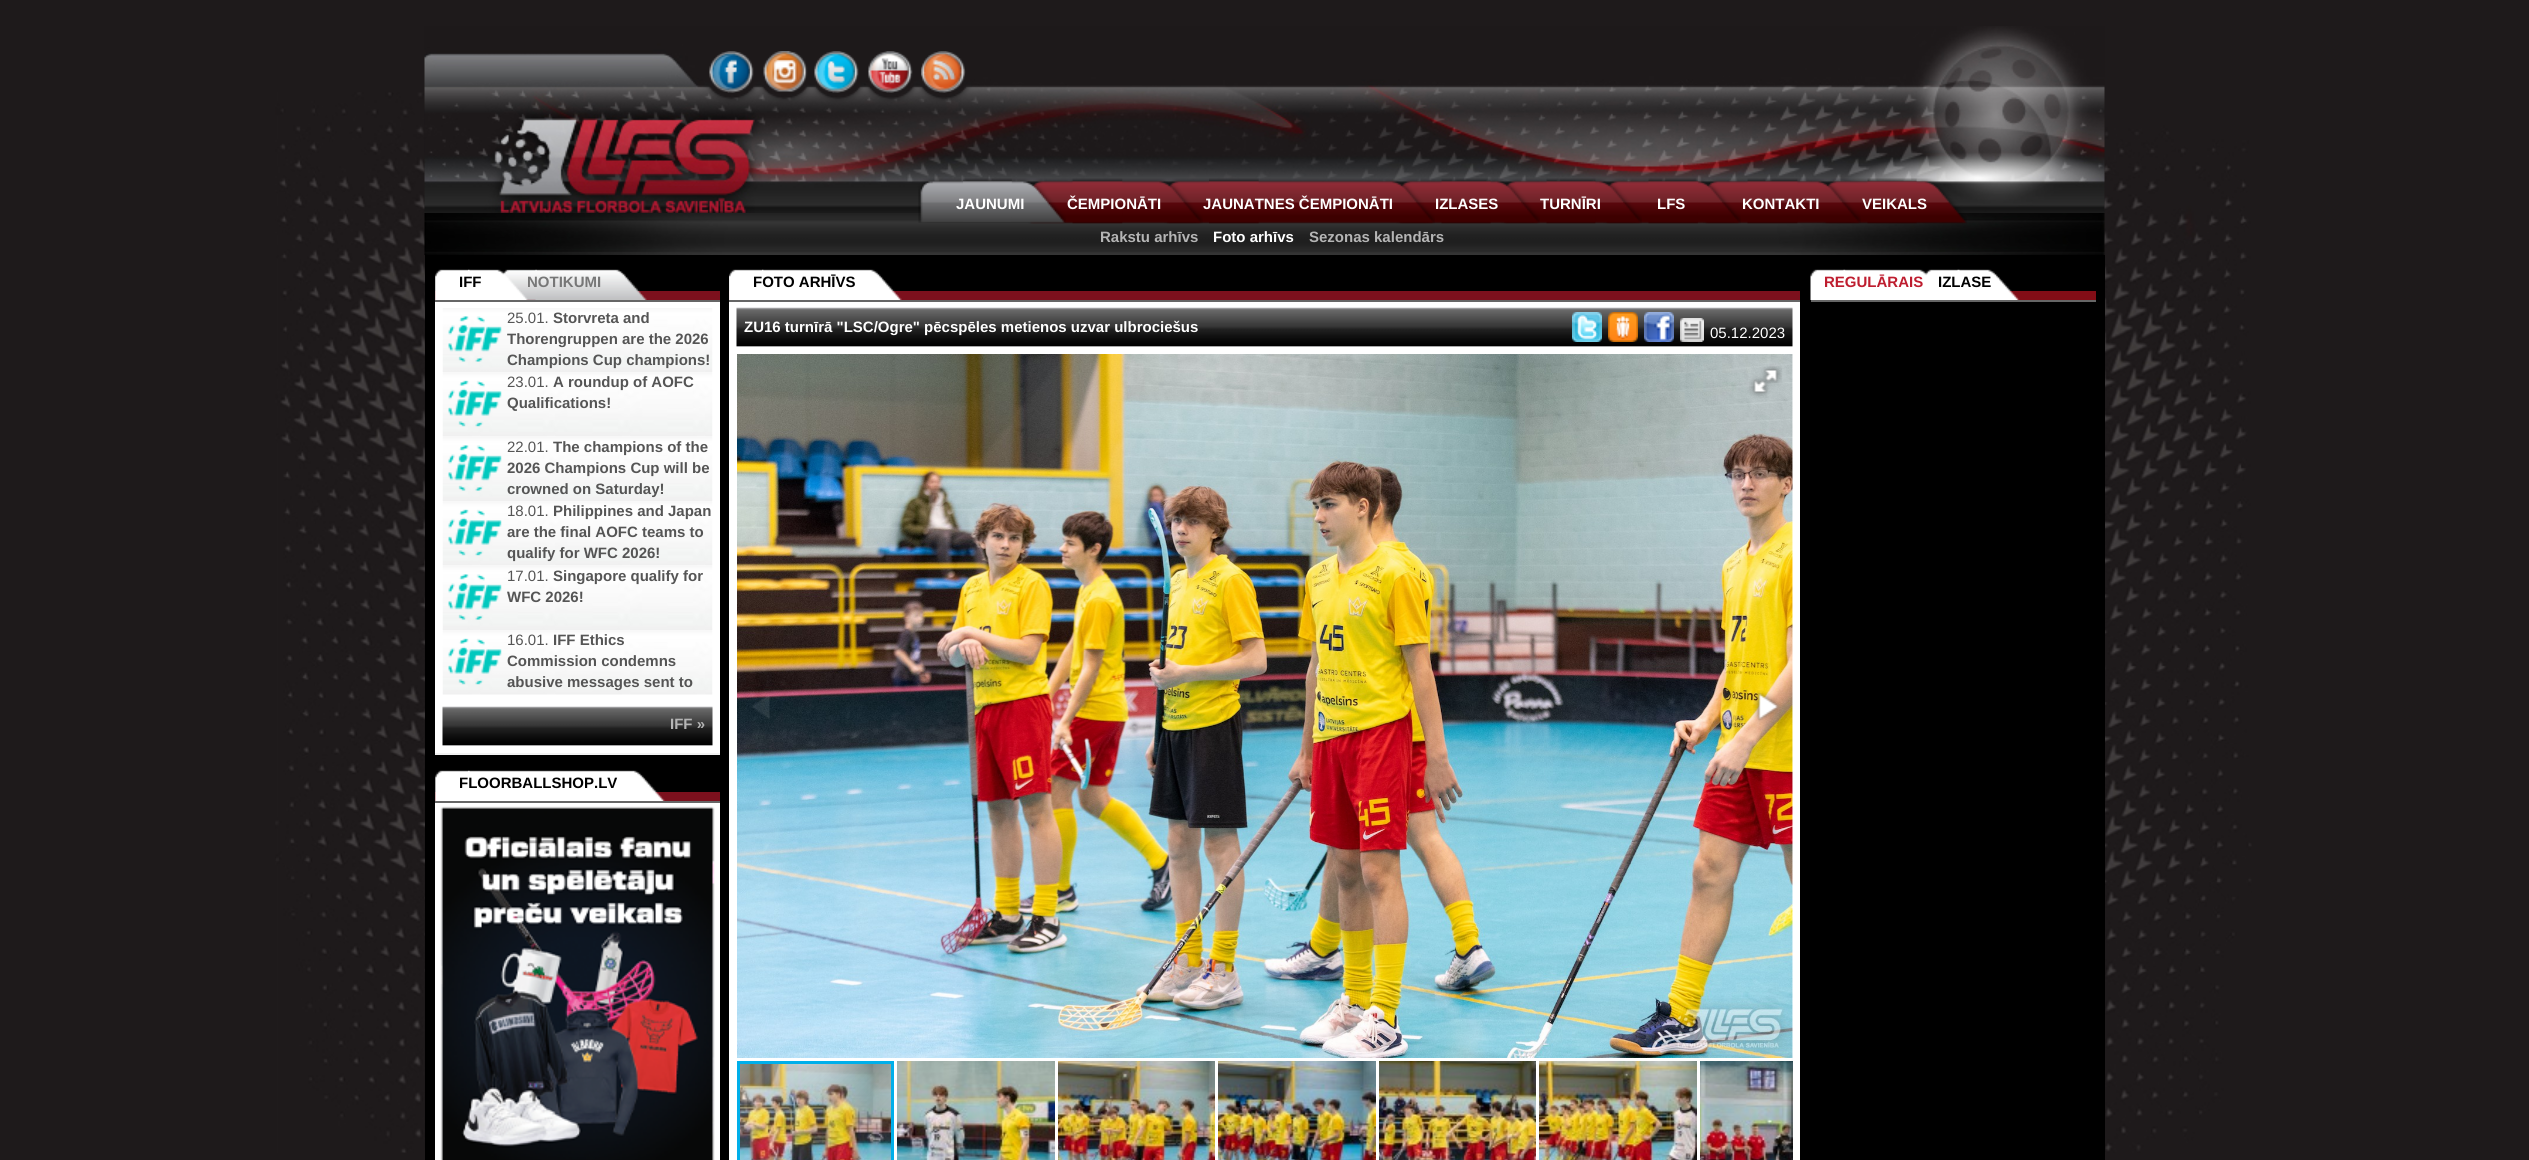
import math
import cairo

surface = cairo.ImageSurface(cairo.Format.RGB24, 2529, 1160)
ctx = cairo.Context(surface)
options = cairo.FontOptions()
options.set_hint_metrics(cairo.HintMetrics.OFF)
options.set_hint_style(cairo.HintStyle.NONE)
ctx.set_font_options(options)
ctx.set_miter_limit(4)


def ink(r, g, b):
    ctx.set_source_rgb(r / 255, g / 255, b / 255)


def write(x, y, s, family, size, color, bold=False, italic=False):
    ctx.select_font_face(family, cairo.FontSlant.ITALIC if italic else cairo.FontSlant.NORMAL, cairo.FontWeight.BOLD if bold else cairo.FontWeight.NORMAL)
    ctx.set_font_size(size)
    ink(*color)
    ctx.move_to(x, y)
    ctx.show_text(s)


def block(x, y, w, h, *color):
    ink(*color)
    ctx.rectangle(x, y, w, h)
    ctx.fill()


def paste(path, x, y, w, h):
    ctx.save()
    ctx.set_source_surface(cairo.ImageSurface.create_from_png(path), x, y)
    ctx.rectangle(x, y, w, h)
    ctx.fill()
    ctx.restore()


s1 = dict(family="Liberation Sans", size=15, color=(255, 255, 255), bold=True)
s2 = dict(family="Liberation Sans", size=15, color=(181, 181, 181), bold=True)
s3 = dict(family="Liberation Sans", size=15, color=(119, 119, 119), bold=True)
s4 = dict(family="Liberation Sans", size=15, color=(0, 0, 0), bold=True)
s5 = dict(family="Liberation Sans", size=15, color=(85, 85, 85))
s6 = dict(family="Liberation Sans", size=15, color=(85, 85, 85), bold=True)
s7 = dict(family="Liberation Sans", size=15, color=(255, 255, 255))
s8 = dict(family="Liberation Sans", size=15, color=(190, 29, 47), bold=True)

ink(30, 26, 27)
ctx.paint()
paste("pic1.png", 275, 92, 1977, 1061)
paste("pic2.png", 424, 26, 1681, 187)
paste("pic3.png", 709, 51, 45, 42)
paste("pic4.png", 763, 51, 45, 41)
paste("pic5.png", 814, 51, 45, 42)
paste("pic6.png", 868, 51, 45, 42)
paste("pic7.png", 921, 51, 45, 42)
paste("pic24.png", 424, 213, 1681, 42)
paste("pic22.png", 1867, 178, 100, 46)
paste("pic23.png", 1822, 178, 95, 46)
paste("pic20.png", 1747, 178, 114, 46)
paste("pic21.png", 1703, 178, 95, 46)
paste("pic18.png", 1648, 178, 93, 46)
paste("pic19.png", 1603, 178, 95, 46)
paste("pic16.png", 1546, 178, 96, 46)
paste("pic17.png", 1501, 178, 95, 46)
paste("pic14.png", 1441, 178, 99, 46)
paste("pic15.png", 1396, 178, 95, 46)
paste("pic12.png", 1209, 178, 226, 46)
paste("pic13.png", 1164, 178, 95, 46)
paste("pic10.png", 1072, 178, 131, 46)
paste("pic11.png", 1028, 178, 95, 46)
paste("pic8.png", 963, 178, 103, 45)
paste("pic9.png", 918, 178, 94, 45)
write(956, 209, "JAUNUMI", **s1)
write(1067, 209, "ČEMPIONĀTI", **s1)
write(1203, 209, "JAUNATNES ČEMPIONĀTI", **s1)
write(1435, 209, "IZLASES", **s1)
write(1540, 209, "TURNĪRI", **s1)
write(1657, 209, "LFS", **s1)
write(1742, 209, "KONTAKTI", **s1)
write(1862, 209, "VEIKALS", **s1)
write(1100, 242, "Rakstu arhīvs", **s2)
write(1213, 242, "Foto arhīvs", **s1)
write(1309, 242, "Sezonas kalendārs", **s2)
block(425, 255, 1680, 905, 0, 0, 0)
block(435, 300, 285, 2, 102, 102, 102)
block(435, 291, 285, 9, 124, 16, 29)
paste("pic27.png", 535, 269, 112, 31)
paste("pic28.png", 502, 269, 35, 31)
write(527, 287, "NOTIKUMI", **s3)
paste("pic25.png", 468, 269, 60, 31)
paste("pic26.png", 435, 269, 35, 31)
write(459, 287, "IFF", **s4)
block(435, 753, 285, 2, 242, 242, 242)
block(435, 302, 285, 451, 255, 255, 255)
paste("pic29.png", 442, 308, 271, 64)
paste("pic30.png", 448, 316, 54, 46)
write(507, 323, "25.01.", **s5)
write(553, 323, "Storvreta and", **s6)
write(507, 344, "Thorengruppen are the 2026", **s6)
write(507, 365, "Champions Cup champions!", **s6)
paste("pic31.png", 442, 372, 271, 65)
paste("pic32.png", 448, 380, 54, 47)
write(507, 387, "23.01.", **s5)
write(553, 387, "A roundup of AOFC", **s6)
write(507, 408, "Qualifications!", **s6)
paste("pic33.png", 442, 437, 271, 64)
paste("pic34.png", 448, 445, 54, 46)
write(507, 452, "22.01.", **s5)
write(553, 452, "The champions of the", **s6)
write(507, 473, "2026 Champions Cup will be", **s6)
write(507, 494, "crowned on Saturday!", **s6)
paste("pic31.png", 442, 501, 271, 65)
paste("pic32.png", 448, 509, 54, 47)
write(507, 516, "18.01.", **s5)
write(553, 516, "Philippines and Japan", **s6)
write(507, 537, "are the final AOFC teams to", **s6)
write(507, 558, "qualify for WFC 2026!", **s6)
paste("pic33.png", 442, 566, 271, 64)
paste("pic34.png", 448, 574, 54, 46)
write(507, 581, "17.01.", **s5)
write(553, 581, "Singapore qualify for", **s6)
write(507, 602, "WFC 2026!", **s6)
paste("pic35.png", 442, 630, 271, 65)
paste("pic36.png", 448, 638, 54, 47)
write(507, 645, "16.01.", **s5)
write(553, 645, "IFF Ethics", **s6)
write(507, 666, "Commission condemns", **s6)
write(507, 687, "abusive messages sent to", **s6)
paste("pic37.png", 442, 706, 271, 40)
write(670, 729, "IFF »", **s2)
block(435, 801, 285, 2, 102, 102, 102)
block(435, 792, 285, 9, 124, 16, 29)
paste("pic38.png", 468, 770, 197, 31)
paste("pic39.png", 435, 770, 35, 31)
write(459, 788, "FLOORBALLSHOP.LV", **s4)
block(435, 803, 285, 357, 255, 255, 255)
paste("pic40.png", 440, 806, 275, 354)
block(729, 300, 1071, 2, 102, 102, 102)
block(729, 291, 1071, 9, 124, 16, 29)
paste("pic41.png", 762, 269, 140, 31)
paste("pic42.png", 729, 269, 35, 31)
write(753, 287, "FOTO ARHĪVS", **s4)
block(729, 302, 1071, 858, 255, 255, 255)
paste("pic43.png", 736, 307, 1057, 40)
write(744, 332, "ZU16 turnīrā \"LSC/Ogre\" pēcspēles metienos uzvar ulbrociešus", **s1)
paste("pic44.png", 1572, 312, 30, 30)
paste("pic45.png", 1608, 312, 30, 30)
paste("pic46.png", 1644, 312, 30, 30)
paste("pic47.png", 1680, 318, 24, 24)
write(1710, 338, "05.12.2023", **s7)
paste("pic48.png", 737, 354, 1056, 704)
paste("pic49.png", 1749, 364, 33, 34)
paste("pic50.png", 751, 695, 19, 24)
paste("pic51.png", 1753, 690, 28, 33)
paste("pic57.png", 1700, 1061, 93, 99)
gradient = cairo.RadialGradient(0, 0, 0, 0, 0, 1)
gradient.set_matrix(cairo.Matrix(1 / 7.5, 0, 0, 1 / 82, -1 * 1793 / 7.5, -1 * 1139 / 82))
gradient.add_color_stop_rgba(0, 0, 0, 0, 0.4)
gradient.add_color_stop_rgba(1, 0, 0, 0, 0)
ctx.set_source(gradient)
ctx.rectangle(1786, 1058, 7, 102)
ctx.fill()
gradient = cairo.LinearGradient(1792, 1058, 1792, 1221)
gradient.add_color_stop_rgba(0, 0, 0, 0, 0)
gradient.add_color_stop_rgba(0.25, 0, 0, 0, 0.2)
gradient.add_color_stop_rgba(0.75, 0, 0, 0, 0.3)
gradient.add_color_stop_rgba(1, 0, 0, 0, 0)
ctx.set_source(gradient)
ctx.rectangle(1791, 1058, 2, 102)
ctx.fill()
paste("pic58.png", 740, 1064, 151, 96)
ctx.rectangle(738.5, 1062.5, 154, 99)
ink(0, 175, 234)
ctx.set_line_width(3)
ctx.stroke()
paste("pic52.png", 897, 1061, 158, 99)
paste("pic53.png", 1058, 1061, 157, 99)
paste("pic54.png", 1218, 1061, 158, 99)
paste("pic55.png", 1379, 1061, 157, 99)
paste("pic56.png", 1539, 1061, 158, 99)
block(1811, 300, 285, 2, 102, 102, 102)
block(2008, 291, 88, 9, 130, 13, 22)
paste("pic61.png", 1957, 269, 63, 31)
paste("pic62.png", 1924, 269, 36, 31)
write(1938, 287, "IZLASE", **s4)
paste("pic59.png", 1843, 269, 97, 31)
paste("pic60.png", 1810, 269, 36, 31)
write(1824, 287, "REGULĀRAIS", **s8)
surface.write_to_png("screenshot.png")
